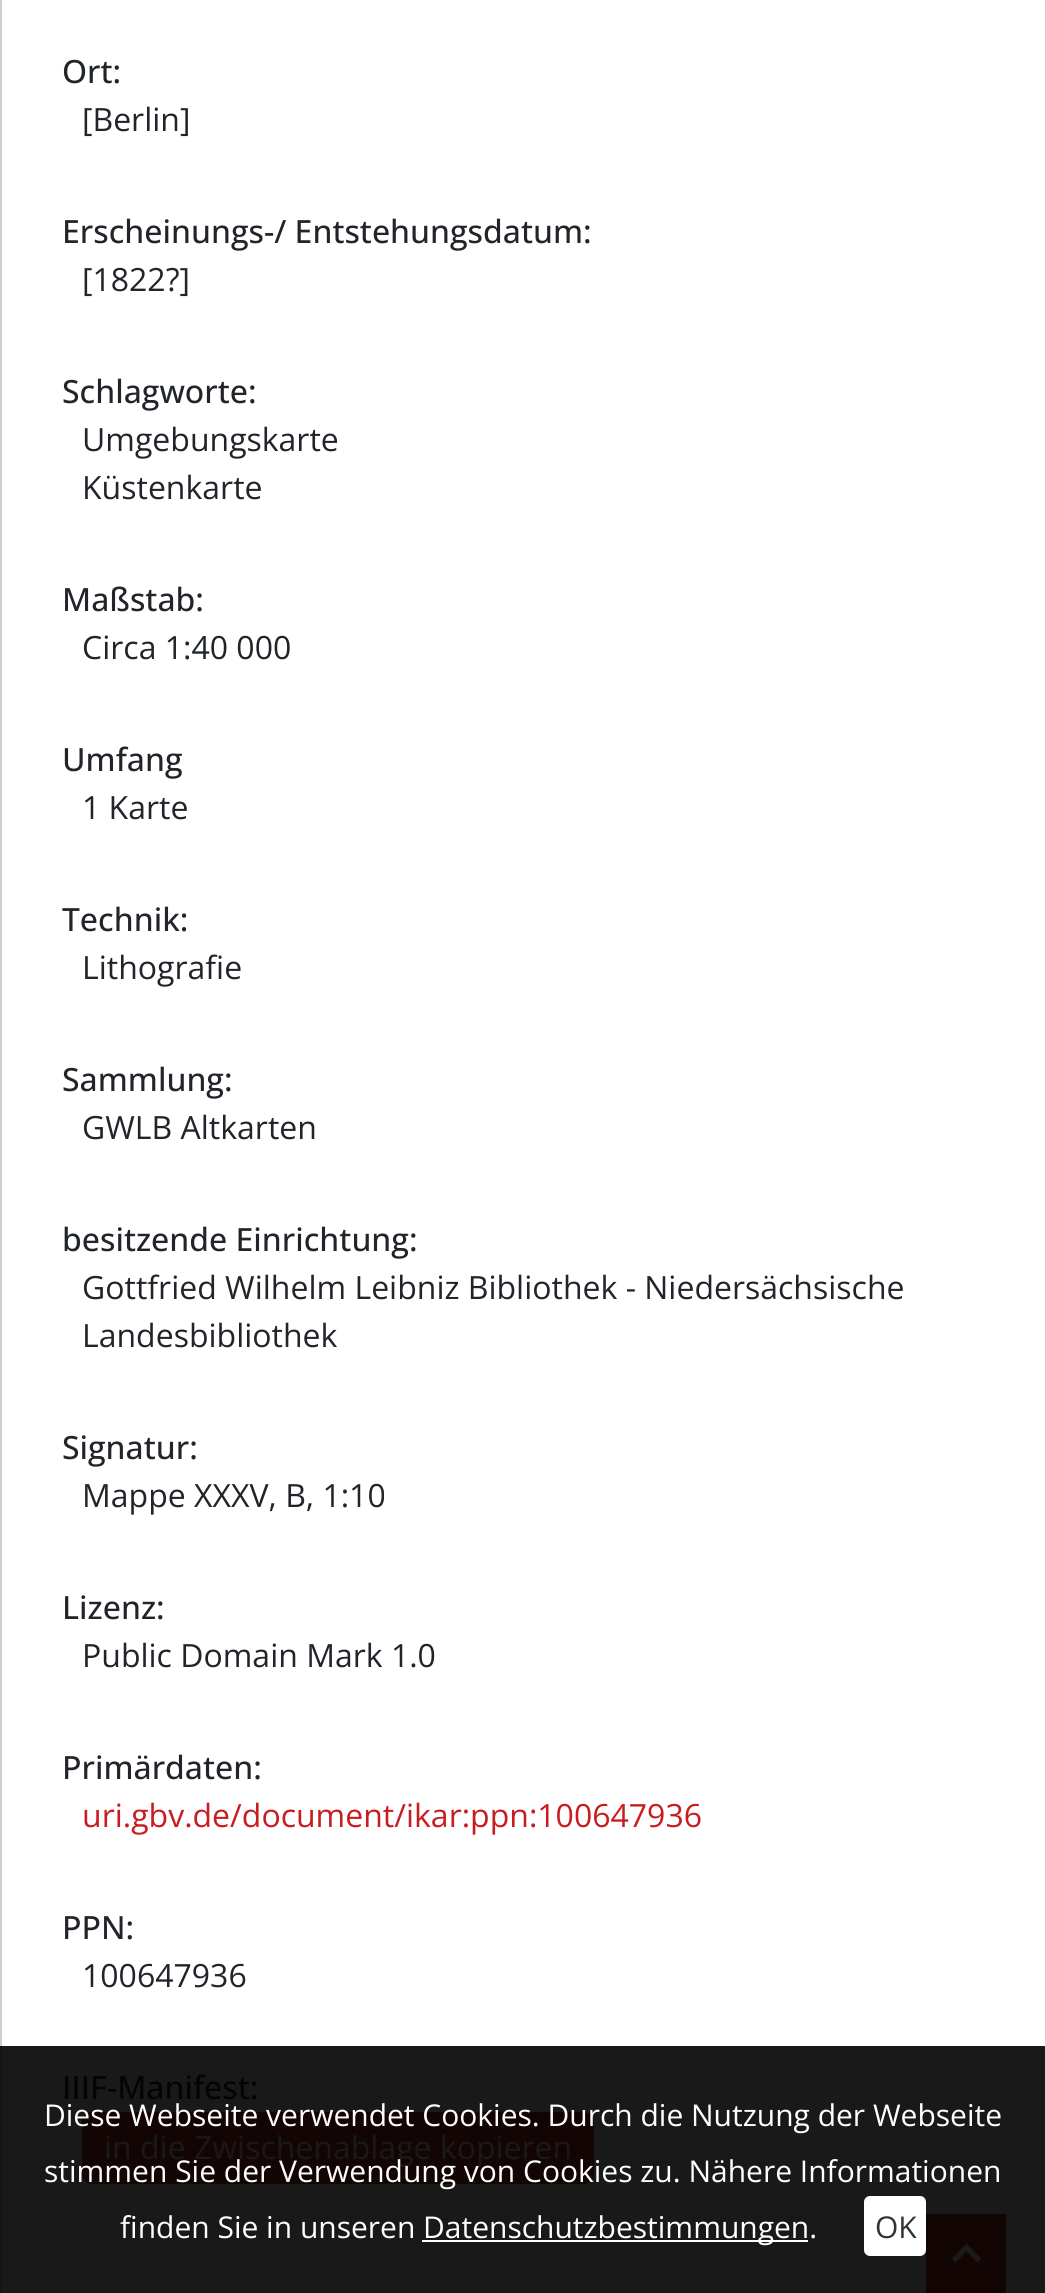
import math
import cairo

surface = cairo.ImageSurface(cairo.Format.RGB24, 1045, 2293)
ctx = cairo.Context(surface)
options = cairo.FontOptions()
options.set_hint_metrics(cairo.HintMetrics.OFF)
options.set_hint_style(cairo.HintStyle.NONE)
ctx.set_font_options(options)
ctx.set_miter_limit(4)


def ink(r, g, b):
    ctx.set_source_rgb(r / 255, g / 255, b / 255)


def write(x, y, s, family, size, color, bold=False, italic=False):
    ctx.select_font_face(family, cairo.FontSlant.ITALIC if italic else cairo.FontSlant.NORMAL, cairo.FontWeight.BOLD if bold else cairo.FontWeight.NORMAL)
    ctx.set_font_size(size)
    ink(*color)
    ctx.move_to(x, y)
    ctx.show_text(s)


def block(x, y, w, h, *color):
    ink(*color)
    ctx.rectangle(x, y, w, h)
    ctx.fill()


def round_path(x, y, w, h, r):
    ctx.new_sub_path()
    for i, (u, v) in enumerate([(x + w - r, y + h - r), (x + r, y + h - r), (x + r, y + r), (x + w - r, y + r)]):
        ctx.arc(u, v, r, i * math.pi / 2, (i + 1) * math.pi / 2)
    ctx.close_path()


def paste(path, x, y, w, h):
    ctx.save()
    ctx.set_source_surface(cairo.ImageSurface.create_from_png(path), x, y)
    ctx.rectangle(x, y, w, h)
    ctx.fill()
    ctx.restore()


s1 = dict(family="Open Sans Medium", size=32, color=(33, 37, 41))
s2 = dict(family="Open Sans", size=32, color=(33, 37, 41))
s3 = dict(family="Open Sans", size=32, color=(200, 28, 32))
s4 = dict(family="Open Sans Medium", size=32, color=(3, 4, 4))
s5 = dict(family="Open Sans", size=32, color=(25, 25, 25))
s6 = dict(family="Open Sans", size=30, color=(255, 255, 255))
s7 = dict(family="Open Sans", size=30, color=(51, 51, 51))

ink(206, 206, 206)
ctx.paint()
block(0, 2046, 2, 247, 21, 21, 21)
block(2, 0, 1043, 2046, 255, 255, 255)
block(2, 2046, 1043, 247, 25, 25, 25)
write(62, 83, "Ort:", **s1)
write(82, 131, "[Berlin]", **s2)
write(62, 243, "Erscheinungs-/ Entstehungsdatum:", **s1)
write(82, 291, "[1822?]", **s2)
write(62, 403, "Schlagworte:", **s1)
write(82, 451, "Umgebungskarte", **s2)
write(82, 499, "Küstenkarte", **s2)
write(62, 611, "Maßstab:", **s1)
write(82, 659, "Circa 1:40 000", **s2)
write(62, 771, "Umfang", **s1)
write(82, 819, "1 Karte", **s2)
write(62, 931, "Technik:", **s1)
write(82, 979, "Lithografie", **s2)
write(62, 1091, "Sammlung:", **s1)
write(82, 1139, "GWLB Altkarten", **s2)
write(62, 1251, "besitzende Einrichtung:", **s1)
write(82, 1299, "Gottfried Wilhelm Leibniz Bibliothek - Niedersächsische", **s2)
write(82, 1347, "Landesbibliothek", **s2)
write(62, 1459, "Signatur:", **s1)
write(82, 1507, "Mappe XXXV, B, 1:10", **s2)
write(62, 1619, "Lizenz:", **s1)
write(82, 1667, "Public Domain Mark 1.0", **s2)
write(62, 1779, "Primärdaten:", **s1)
write(82, 1827, "uri.gbv.de/document/ikar:ppn:100647936", **s3)
write(62, 1939, "PPN:", **s1)
write(82, 1987, "100647936", **s2)
write(62, 2099, "IIIF-Manifest:", **s4)
ink(20, 5, 5)
round_path(83, 2113, 510, 70, 9)
ctx.fill_preserve()
ctx.stroke()
write(104, 2159, "in die Zwischenablage kopieren", **s5)
write(44, 2126, "Diese Webseite verwendet Cookies. Durch die Nutzung der Webseite", **s6)
write(44, 2182, "stimmen Sie der Verwendung von Cookies zu. Nähere Informationen", **s6)
write(120, 2238, "finden Sie in unseren", **s6)
block(422, 2240, 386, 2, 255, 255, 255)
write(423, 2238, "Datenschutzbestimmungen.", **s6)
round_path(864, 2196, 62, 60, 6)
ctx.fill()
write(875, 2238, "OK", **s7)
block(926, 2214, 80, 79, 20, 5, 5)
paste("pic1.png", 951, 2243, 31, 20)
surface.write_to_png("screenshot.png")
